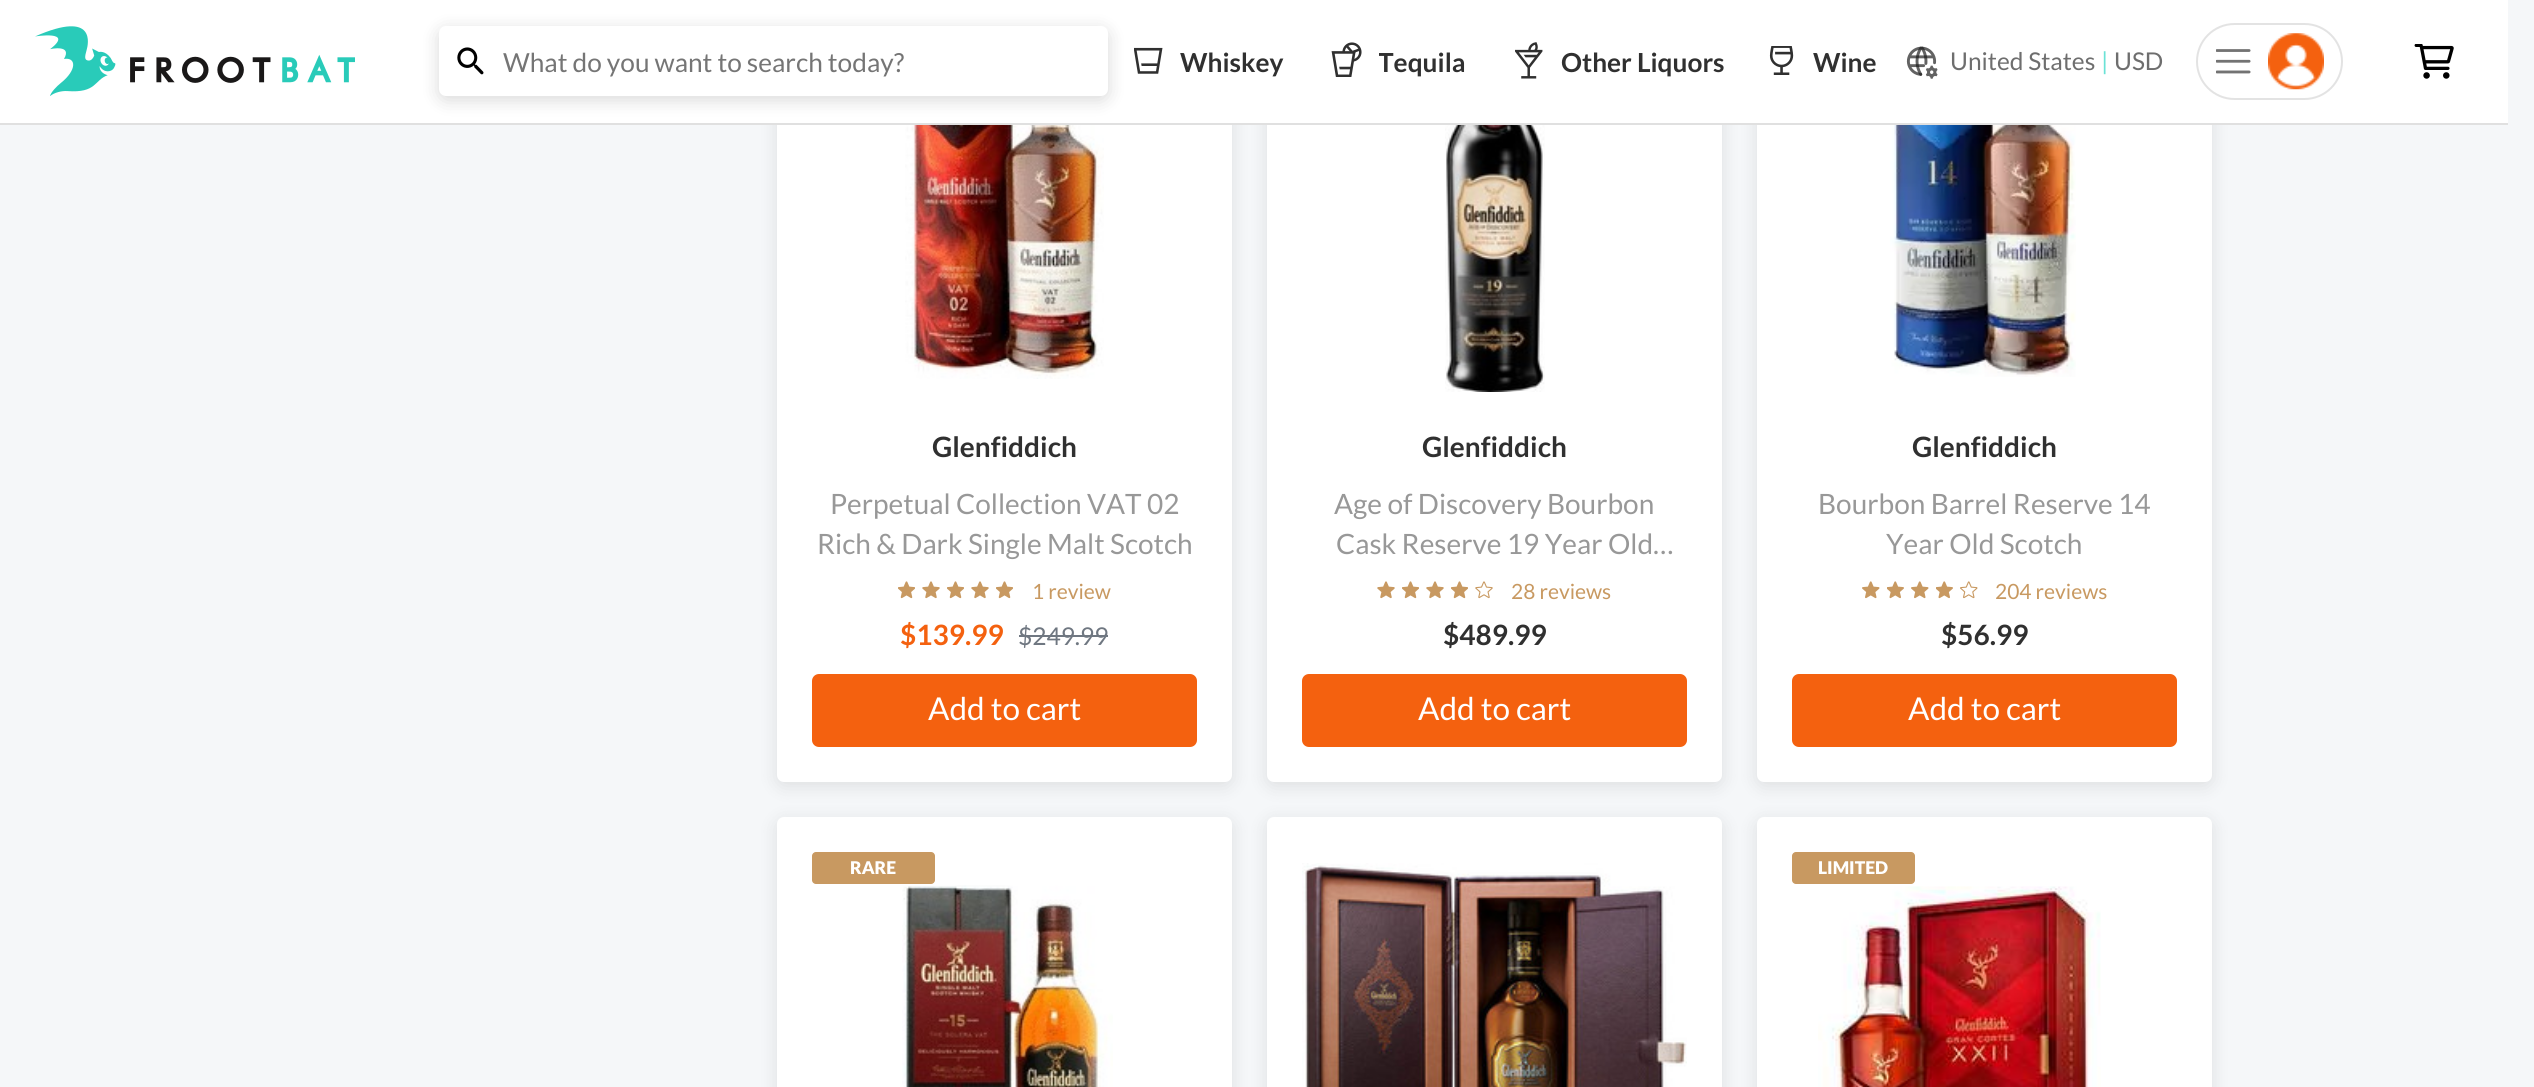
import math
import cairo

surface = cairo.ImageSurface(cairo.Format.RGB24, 2534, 1087)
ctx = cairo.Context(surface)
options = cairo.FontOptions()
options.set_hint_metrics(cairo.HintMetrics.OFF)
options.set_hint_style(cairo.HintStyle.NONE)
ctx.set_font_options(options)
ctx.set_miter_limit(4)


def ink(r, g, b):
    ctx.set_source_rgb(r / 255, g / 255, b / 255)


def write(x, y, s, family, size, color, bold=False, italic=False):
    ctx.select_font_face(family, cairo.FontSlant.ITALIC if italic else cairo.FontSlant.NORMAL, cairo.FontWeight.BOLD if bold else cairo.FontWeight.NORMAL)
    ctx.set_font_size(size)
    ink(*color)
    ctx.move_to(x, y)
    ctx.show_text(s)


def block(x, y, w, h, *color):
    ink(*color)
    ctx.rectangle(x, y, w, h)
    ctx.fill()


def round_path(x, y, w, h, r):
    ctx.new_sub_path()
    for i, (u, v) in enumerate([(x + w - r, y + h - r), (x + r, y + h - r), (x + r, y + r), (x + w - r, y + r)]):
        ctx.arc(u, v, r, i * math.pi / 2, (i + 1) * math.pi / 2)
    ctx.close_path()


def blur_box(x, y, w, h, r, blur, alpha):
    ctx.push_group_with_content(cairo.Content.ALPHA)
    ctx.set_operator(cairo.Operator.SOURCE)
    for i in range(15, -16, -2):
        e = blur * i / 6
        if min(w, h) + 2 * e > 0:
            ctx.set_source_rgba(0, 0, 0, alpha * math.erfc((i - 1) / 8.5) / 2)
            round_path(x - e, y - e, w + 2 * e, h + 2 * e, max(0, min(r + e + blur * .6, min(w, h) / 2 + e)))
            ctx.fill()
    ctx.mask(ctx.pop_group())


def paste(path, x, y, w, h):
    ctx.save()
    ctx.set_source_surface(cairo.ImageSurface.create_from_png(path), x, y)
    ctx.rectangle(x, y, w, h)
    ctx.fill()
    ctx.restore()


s1 = dict(family="Lato", size=26.25, color=(117, 117, 117))
s2 = dict(family="Lato", size=26.25, color=(48, 48, 48), bold=True)
s3 = dict(family="Lato", size=24.5, color=(110, 110, 110))
s4 = dict(family="Lato", size=24.5, color=(107, 226, 214))
s5 = dict(family="Lato", size=28, color=(48, 48, 48), bold=True)
s6 = dict(family="Lato", size=28, color=(152, 152, 152))
s7 = dict(family="Lato", size=21, color=(200, 153, 97))
s8 = dict(family="Lato", size=28, color=(244, 97, 15), bold=True)
s9 = dict(family="Lato", size=24.5, color=(111, 119, 129))
s10 = dict(family="Lato", size=31.5, color=(255, 255, 255))
s11 = dict(family="Lato Black", size=17.5, color=(255, 255, 255))

ink(245, 247, 249)
ctx.paint()
ink(0, 0, 0)
blur_box(777, -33, 455, 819, 7, 9, 0.1)
ink(255, 255, 255)
round_path(777, -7, 455, 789, 7)
ctx.fill()
ink(0, 0, 0)
blur_box(1267, -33, 455, 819, 7, 9, 0.1)
ink(255, 255, 255)
round_path(1267, -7, 455, 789, 7)
ctx.fill()
ink(0, 0, 0)
blur_box(1757, -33, 455, 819, 7, 9, 0.1)
ink(255, 255, 255)
round_path(1757, -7, 455, 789, 7)
ctx.fill()
block(0, 0, 2508, 123, 255, 255, 255)
block(0, 123, 2508, 2, 224, 224, 224)
paste("pic1.png", 35, 26, 320, 70)
paste("pic11.png", 905, 125, 199, 254)
ink(0, 0, 0)
blur_box(439, 30, 669, 70, 7, 9, 0.15)
ink(255, 255, 255)
round_path(439, 26, 669, 70, 7)
ctx.fill()
paste("pic2.png", 457, 47, 27, 28)
write(503, 72, "What do you want to search today?", **s1)
paste("pic3.png", 1134, 47, 29, 27)
write(1180, 72, "Whiskey", **s2)
paste("pic4.png", 1331, 42, 31, 35)
ctx.save()
ctx.rectangle(1379, 44, 88, 38)
ctx.clip()
write(1378, 72, "Tequila", **s2)
ctx.restore()
paste("pic5.png", 1515, 42, 28, 37)
write(1561, 72, "Other Liquors", **s2)
paste("pic6.png", 1769, 46, 25, 29)
write(1813, 72, "Wine", **s2)
paste("pic7.png", 1906, 46, 32, 33)
write(1950, 70, "United States", **s3)
write(2101, 70, "|", **s4)
write(2114, 70, "USD", **s3)
round_path(2197, 24, 145, 75, 37.5)
ink(227, 227, 227)
ctx.stroke()
paste("pic8.png", 2216, 49, 35, 25)
paste("pic9.png", 2268, 33, 56, 57)
paste("pic10.png", 2414, 44, 40, 35)
write(932, 457, "Glenfiddich", **s5)
write(830, 514, "Perpetual Collection VAT 02", **s6)
write(817, 554, "Rich & Dark Single Malt Scotch", **s6)
paste("pic12.png", 898, 581, 17, 18)
paste("pic13.png", 922, 581, 18, 18)
paste("pic12.png", 947, 581, 17, 18)
paste("pic13.png", 971, 581, 18, 18)
paste("pic12.png", 996, 581, 17, 18)
write(1032, 599, "1 review", **s7)
write(900, 645, "$139.99", **s8)
write(1018, 645, "$249.99", **s9)
block(1019, 635, 89, 2, 111, 119, 129)
ink(244, 97, 15)
round_path(812, 674, 385, 73, 7)
ctx.fill()
write(928, 720, "Add to cart", **s10)
paste("pic14.png", 1445, 125, 100, 267)
write(1422, 457, "Glenfiddich", **s5)
write(1334, 514, "Age of Discovery Bourbon", **s6)
write(1336, 554, "Cask Reserve 19 Year Old…", **s6)
paste("pic13.png", 1377, 581, 18, 18)
paste("pic12.png", 1402, 581, 17, 18)
paste("pic13.png", 1426, 581, 18, 18)
paste("pic12.png", 1451, 581, 17, 18)
paste("pic15.png", 1475, 581, 18, 18)
write(1511, 599, "28 reviews", **s7)
write(1443, 645, "$489.99", **s5)
ink(244, 97, 15)
round_path(1302, 674, 385, 73, 7)
ctx.fill()
write(1418, 720, "Add to cart", **s10)
paste("pic16.png", 1890, 125, 186, 252)
write(1912, 457, "Glenfiddich", **s5)
write(1818, 514, "Bourbon Barrel Reserve 14", **s6)
write(1886, 554, "Year Old Scotch", **s6)
paste("pic17.png", 1862, 581, 18, 18)
paste("pic18.png", 1887, 581, 17, 18)
paste("pic17.png", 1911, 581, 18, 18)
paste("pic18.png", 1936, 581, 17, 18)
paste("pic19.png", 1960, 581, 18, 18)
write(1995, 599, "204 reviews", **s7)
write(1941, 645, "$56.99", **s5)
ink(244, 97, 15)
round_path(1792, 674, 385, 73, 7)
ctx.fill()
write(1908, 720, "Add to cart", **s10)
ink(0, 0, 0)
blur_box(777, 821, 455, 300, 7, 9, 0.1)
ink(255, 255, 255)
round_path(777, 817, 455, 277, 7)
ctx.fill()
ink(200, 153, 97)
round_path(812, 852, 123, 32, 4)
ctx.fill()
write(850, 874, "RARE", **s11)
paste("pic20.png", 902, 885, 211, 202)
ink(0, 0, 0)
blur_box(1267, 821, 455, 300, 7, 9, 0.1)
ink(255, 255, 255)
round_path(1267, 817, 455, 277, 7)
ctx.fill()
paste("pic21.png", 1302, 863, 385, 224)
ink(0, 0, 0)
blur_box(1757, 821, 455, 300, 7, 9, 0.1)
ink(255, 255, 255)
round_path(1757, 817, 455, 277, 7)
ctx.fill()
ink(200, 153, 97)
round_path(1792, 852, 123, 32, 4)
ctx.fill()
write(1818, 874, "LIMITED", **s11)
paste("pic22.png", 1818, 886, 283, 201)
surface.write_to_png("screenshot.png")
